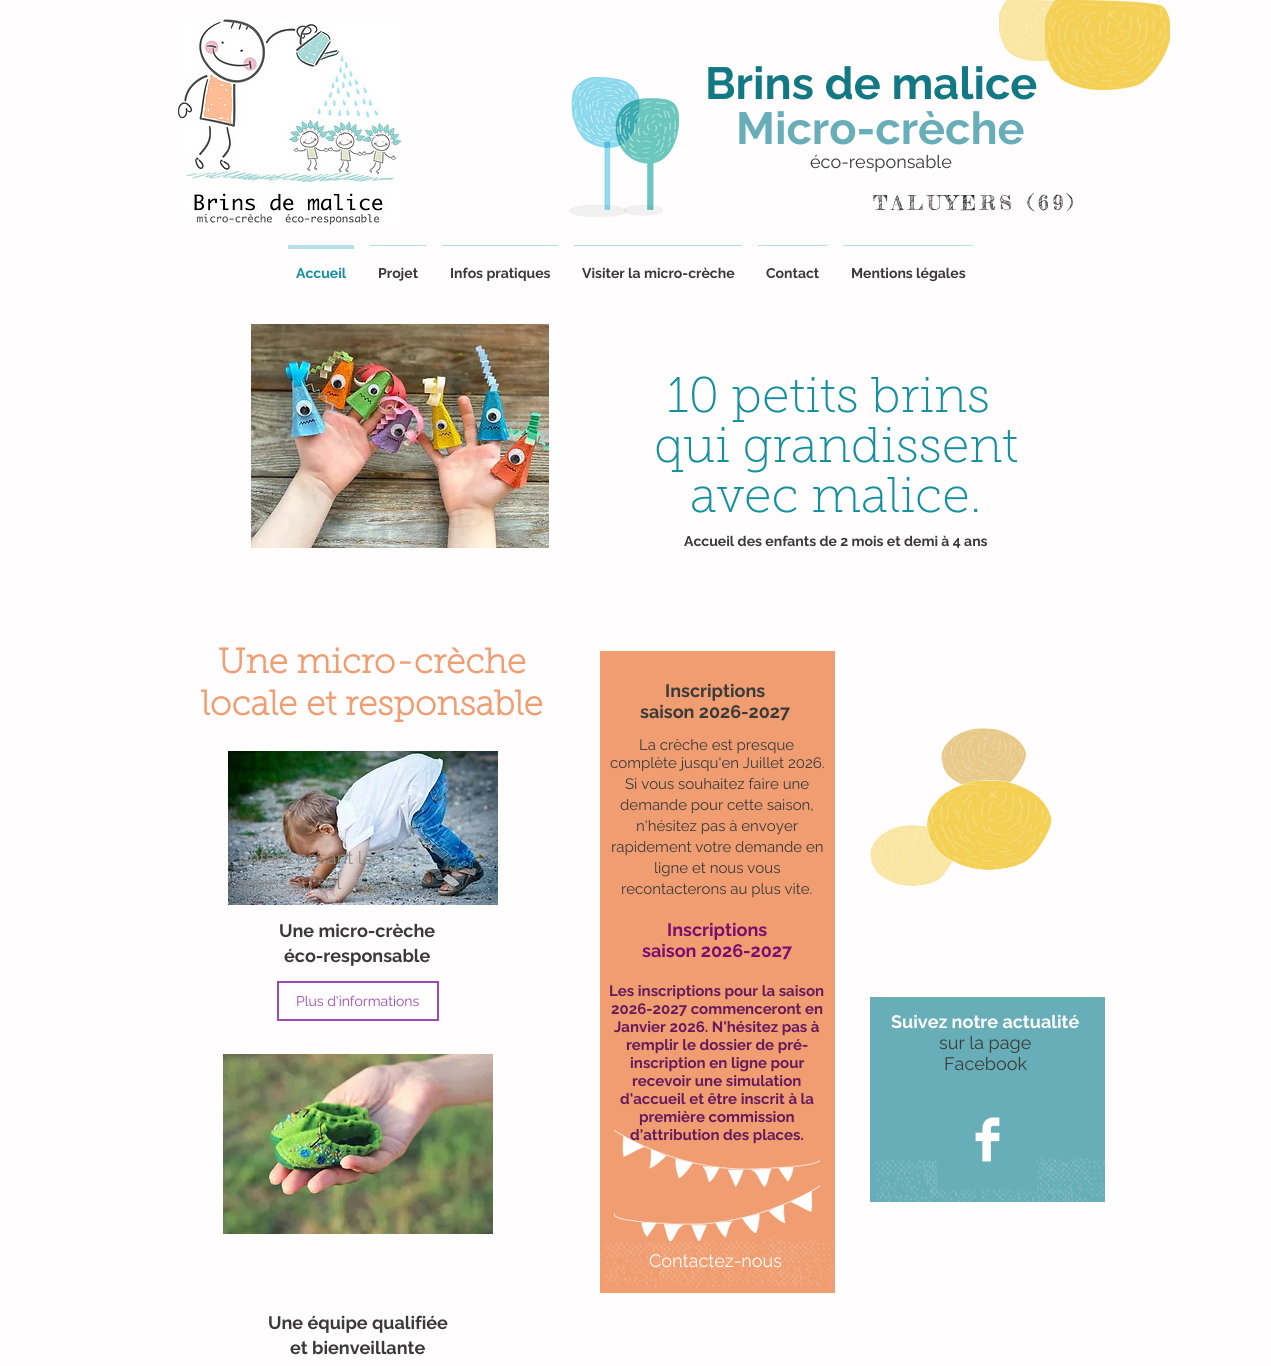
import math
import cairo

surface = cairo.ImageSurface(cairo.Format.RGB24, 1271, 1366)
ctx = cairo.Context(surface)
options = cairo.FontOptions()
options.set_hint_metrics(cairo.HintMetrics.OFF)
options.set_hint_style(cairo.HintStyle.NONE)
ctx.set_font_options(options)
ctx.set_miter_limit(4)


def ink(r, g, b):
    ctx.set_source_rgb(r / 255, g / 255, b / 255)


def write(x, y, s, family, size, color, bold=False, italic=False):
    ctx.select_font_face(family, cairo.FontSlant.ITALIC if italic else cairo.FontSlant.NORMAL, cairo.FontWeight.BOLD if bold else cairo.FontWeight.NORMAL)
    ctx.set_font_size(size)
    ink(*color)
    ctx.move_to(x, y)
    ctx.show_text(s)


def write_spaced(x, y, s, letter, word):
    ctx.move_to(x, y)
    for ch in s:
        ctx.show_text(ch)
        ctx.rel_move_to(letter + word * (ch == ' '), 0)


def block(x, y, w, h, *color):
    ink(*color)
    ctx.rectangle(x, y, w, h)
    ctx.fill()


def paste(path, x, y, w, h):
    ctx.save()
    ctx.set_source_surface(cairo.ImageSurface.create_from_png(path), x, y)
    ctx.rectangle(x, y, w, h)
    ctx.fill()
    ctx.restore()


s1 = dict(family="Raleway", size=45, color=(18, 121, 132), bold=True)
s2 = dict(family="Raleway", size=45, color=(103, 174, 184), bold=True)
s3 = dict(family="Raleway", size=18, color=(59, 58, 58))
s4 = dict(family="Raleway", size=14, color=(19, 144, 160), bold=True)
s5 = dict(family="Raleway", size=14, color=(59, 58, 58), bold=True)
s6 = dict(family="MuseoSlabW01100 Thin", size=50, color=(19, 144, 160))
s7 = dict(family="MuseoSlabW01100", size=35, color=(240, 157, 113), bold=True)
s8 = dict(family="Raleway", size=18, color=(59, 58, 58), bold=True)
s9 = dict(family="Raleway", size=15, color=(59, 58, 58))
s10 = dict(family="Raleway", size=18, color=(126, 12, 110), bold=True)
s11 = dict(family="Raleway", size=15, color=(103, 27, 93), bold=True)
s12 = dict(family="Raleway", size=18, color=(255, 253, 253))
s13 = dict(family="Raleway", size=18, color=(144, 143, 139))
s14 = dict(family="Raleway", size=18, color=(139, 135, 136))
s15 = dict(family="Raleway", size=14, color=(154, 76, 180))
s16 = dict(family="Raleway", size=18, color=(255, 253, 253), bold=True)

ink(255, 253, 253)
ctx.paint()
paste("pic1.png", 178, 19, 224, 206)
paste("pic2.png", 999, 0, 58, 61)
paste("pic3.png", 1045, 0, 125, 90)
paste("pic4.png", 569, 77, 110, 140)
write(705, 99, "Brins de malice", **s1)
write(736, 144, "Micro-crèche", **s2)
write(810, 168, "éco-responsable", **s3)
ctx.select_font_face("Fredericka the Great")
ctx.set_font_size(20)
ink(25, 24, 24)
write_spaced(873, 210, "TALUYERS (69)", 4, 0)
block(288, 245, 66, 4, 180, 225, 231)
write(296, 278, "Accueil", **s4)
block(370, 245, 56, 1, 180, 225, 231)
write(378, 278, "Projet", **s5)
block(442, 245, 116, 1, 180, 225, 231)
write(450, 278, "Infos pratiques", **s5)
block(574, 245, 168, 1, 180, 225, 231)
write(582, 278, "Visiter la micro-crèche", **s5)
block(758, 245, 69, 1, 180, 225, 231)
write(766, 278, "Contact", **s5)
block(843, 245, 130, 1, 180, 225, 231)
write(851, 278, "Mentions légales", **s5)
paste("pic5.png", 251, 324, 298, 224)
write(667, 412, "10 petits brins", **s6)
write(654, 462, "qui grandissent", **s6)
write(690, 512, "avec malice.", **s6)
write(684, 546, "Accueil des enfants de 2 mois et demi à 4 ans", **s5)
write(218, 673, "Une micro-crèche", **s7)
write(201, 715, "locale et responsable", **s7)
block(600, 651, 235, 642, 240, 157, 113)
write(665, 697, "Inscriptions", **s8)
write(640, 718, "saison 2026-2027", **s8)
write(639, 750, "La crèche est presque", **s9)
write(610, 768, "complète jusqu'en Juillet 2026.", **s9)
write(625, 789, "Si vous souhaitez faire une", **s9)
write(620, 810, "demande pour cette saison,", **s9)
write(636, 831, "n'hésitez pas à envoyer", **s9)
write(611, 852, "rapidement votre demande en", **s9)
write(654, 873, "ligne et nous vous", **s9)
write(621, 894, "recontacterons au plus vite.", **s9)
write(667, 936, "Inscriptions", **s10)
write(642, 957, "saison 2026-2027", **s10)
write(609, 996, "Les inscriptions pour la saison", **s11)
write(611, 1014, "2026-2027 commenceront en", **s11)
write(614, 1032, "Janvier 2026. N'hésitez pas à", **s11)
write(626, 1050, "remplir le dossier de pré-", **s11)
write(630, 1068, "inscription en ligne pour", **s11)
write(632, 1086, "recevoir une simulation", **s11)
write(620, 1104, "d'accueil et être inscrit à la", **s11)
write(639, 1122, "première commission", **s11)
write(630, 1140, "d'attribution des places.", **s11)
paste("pic6.png", 614, 1130, 206, 111)
paste("pic7.png", 605, 1239, 230, 49)
write(649, 1267, "Contactez-nous", **s12)
paste("pic8.png", 941, 728, 86, 57)
paste("pic9.png", 228, 751, 270, 154)
write(238, 864, "Enfant posant les", **s13)
write(238, 889, "mains au sol", **s14)
paste("pic10.png", 870, 825, 83, 61)
ink(255, 255, 255)
ctx.new_path()
ctx.move_to(989.5, 780)
ctx.curve_to(1024, 780, 1052, 800, 1052, 825)
ctx.curve_to(1052, 850, 1024, 870, 989.5, 870)
ctx.curve_to(955, 870, 927, 850, 927, 825)
ctx.curve_to(927, 800, 955, 780, 989.5, 780)
ctx.close_path()
ctx.fill()
paste("pic11.png", 927, 780, 125, 90)
write(279, 937, "Une micro-crèche", **s8)
write(284, 962, "éco-responsable", **s8)
ctx.rectangle(278, 982, 160, 38)
ink(154, 76, 180)
ctx.stroke()
write(296, 1006, "Plus d'informations", **s15)
block(870, 997, 235, 205, 103, 174, 184)
write(891, 1028, "Suivez notre actualité", **s16)
write(939, 1049, "sur la page", **s3)
write(944, 1070, "Facebook", **s3)
paste("pic13.png", 876, 1157, 229, 45)
block(937, 1158, 100, 32, 103, 174, 184)
paste("pic12.png", 975, 1117, 25, 45)
paste("pic14.png", 223, 1054, 270, 180)
write(268, 1329, "Une équipe qualifiée", **s8)
write(290, 1354, "et bienveillante", **s8)
surface.write_to_png("screenshot.png")
